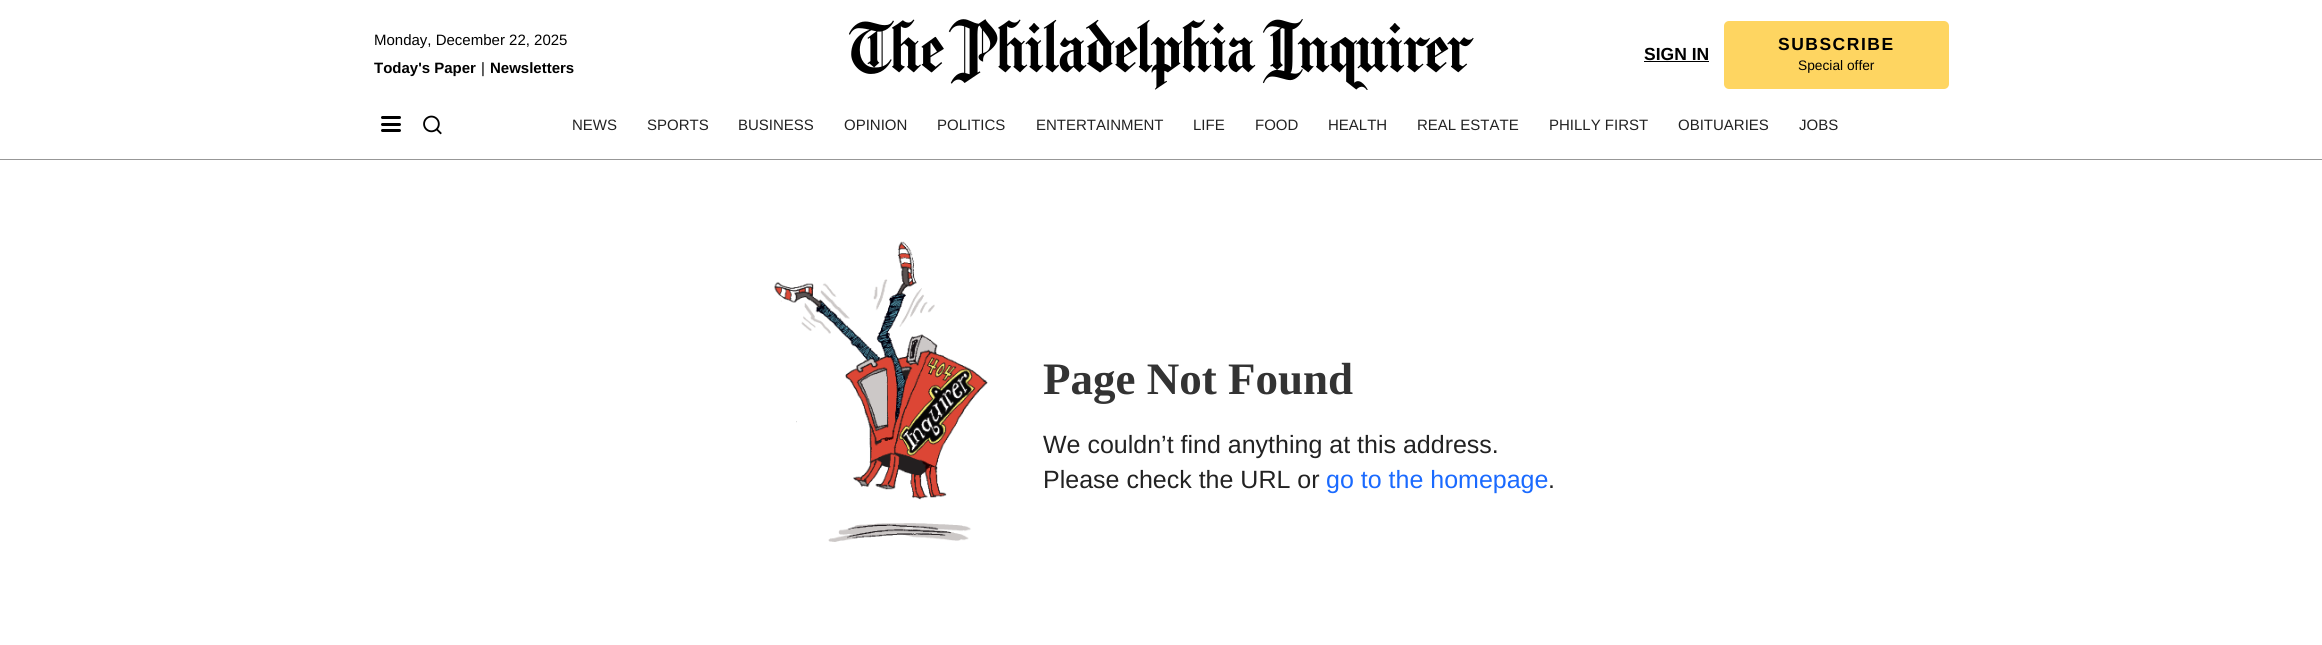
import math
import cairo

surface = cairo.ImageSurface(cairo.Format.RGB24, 2322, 645)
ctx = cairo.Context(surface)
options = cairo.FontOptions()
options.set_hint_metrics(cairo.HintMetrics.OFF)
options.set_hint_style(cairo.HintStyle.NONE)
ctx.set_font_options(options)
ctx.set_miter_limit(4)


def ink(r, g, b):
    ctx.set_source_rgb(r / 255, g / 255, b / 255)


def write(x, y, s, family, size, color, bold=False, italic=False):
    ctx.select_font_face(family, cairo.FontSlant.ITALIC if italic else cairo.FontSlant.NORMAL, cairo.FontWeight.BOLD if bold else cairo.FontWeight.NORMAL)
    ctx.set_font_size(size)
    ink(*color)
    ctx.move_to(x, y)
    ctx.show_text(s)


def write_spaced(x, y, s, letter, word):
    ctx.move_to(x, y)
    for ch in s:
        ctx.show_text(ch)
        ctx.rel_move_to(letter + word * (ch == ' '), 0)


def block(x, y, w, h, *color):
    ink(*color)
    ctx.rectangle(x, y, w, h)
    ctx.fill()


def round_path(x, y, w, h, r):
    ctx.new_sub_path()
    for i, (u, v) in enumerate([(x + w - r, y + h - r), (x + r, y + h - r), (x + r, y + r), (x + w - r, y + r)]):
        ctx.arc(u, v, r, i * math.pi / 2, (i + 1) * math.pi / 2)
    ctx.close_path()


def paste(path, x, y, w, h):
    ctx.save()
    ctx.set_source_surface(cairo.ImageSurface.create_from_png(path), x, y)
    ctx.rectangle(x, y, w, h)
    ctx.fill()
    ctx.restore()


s1 = dict(family="Liberation Sans", size=15, color=(0, 0, 0))
s2 = dict(family="Liberation Sans", size=15, color=(0, 0, 0), bold=True)
s3 = dict(family="Liberation Sans", size=17.5, color=(0, 0, 0), bold=True)
s4 = dict(family="Liberation Sans", size=13.75, color=(0, 0, 0))
s5 = dict(family="Liberation Sans", size=15, color=(34, 34, 34))
s6 = dict(family="Liberation Serif", size=45, color=(51, 51, 51), bold=True)
s7 = dict(family="Liberation Sans", size=25, color=(34, 34, 34))
s8 = dict(family="Liberation Sans", size=25, color=(26, 106, 255))

ink(255, 255, 255)
ctx.paint()
block(0, 159, 2322, 1, 151, 151, 151)
write(374, 45, "Monday, December 22, 2025", **s1)
write(374, 73, "Today's Paper", **s2)
write(481, 73, "|", **s1)
write(490, 73, "Newsletters", **s2)
paste("pic1.png", 849, 19, 625, 71)
write(1644, 60, "SIGN IN", **s3)
block(1644, 61, 65, 1, 0, 0, 0)
ink(254, 213, 97)
round_path(1724, 21, 225, 68, 5)
ctx.fill()
ink(0, 0, 0)
write_spaced(1778, 50, "SUBSCRIBE", 1.5, 0)
write(1798, 70, "Special offer", **s4)
round_path(381, 123, 20, 3, 1.5)
ctx.fill()
round_path(381, 116, 20, 3, 1.5)
ctx.fill()
round_path(381, 129, 20, 3, 1.5)
ctx.fill()
paste("pic2.png", 423, 115, 19, 20)
write(572, 130, "NEWS", **s5)
write(647, 130, "SPORTS", **s5)
write(738, 130, "BUSINESS", **s5)
write(844, 130, "OPINION", **s5)
write(937, 130, "POLITICS", **s5)
write(1036, 130, "ENTERTAINMENT", **s5)
write(1193, 130, "LIFE", **s5)
write(1255, 130, "FOOD", **s5)
write(1328, 130, "HEALTH", **s5)
write(1417, 130, "REAL ESTATE", **s5)
write(1549, 130, "PHILLY FIRST", **s5)
write(1678, 130, "OBITUARIES", **s5)
write(1799, 130, "JOBS", **s5)
paste("pic3.png", 774, 241, 214, 301)
write(1043, 394, "Page Not Found", **s6)
write(1043, 453, "We couldn’t find anything at this address.", **s7)
write(1043, 488, "Please check the URL or", **s7)
write(1326, 488, "go to the homepage", **s8)
write(1548, 488, ".", **s7)
surface.write_to_png("screenshot.png")
